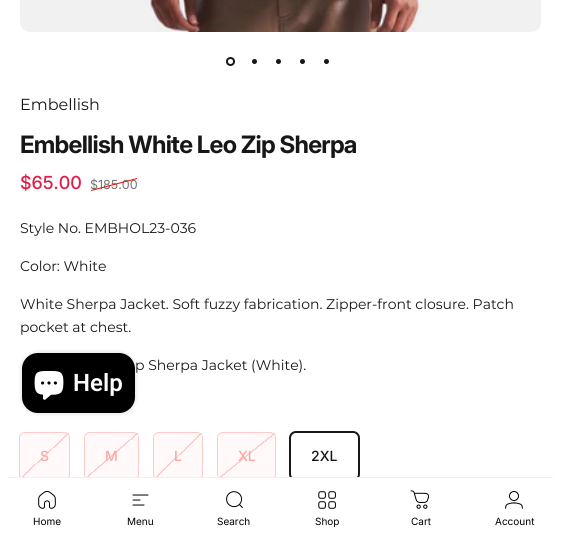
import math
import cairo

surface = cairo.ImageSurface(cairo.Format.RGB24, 561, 538)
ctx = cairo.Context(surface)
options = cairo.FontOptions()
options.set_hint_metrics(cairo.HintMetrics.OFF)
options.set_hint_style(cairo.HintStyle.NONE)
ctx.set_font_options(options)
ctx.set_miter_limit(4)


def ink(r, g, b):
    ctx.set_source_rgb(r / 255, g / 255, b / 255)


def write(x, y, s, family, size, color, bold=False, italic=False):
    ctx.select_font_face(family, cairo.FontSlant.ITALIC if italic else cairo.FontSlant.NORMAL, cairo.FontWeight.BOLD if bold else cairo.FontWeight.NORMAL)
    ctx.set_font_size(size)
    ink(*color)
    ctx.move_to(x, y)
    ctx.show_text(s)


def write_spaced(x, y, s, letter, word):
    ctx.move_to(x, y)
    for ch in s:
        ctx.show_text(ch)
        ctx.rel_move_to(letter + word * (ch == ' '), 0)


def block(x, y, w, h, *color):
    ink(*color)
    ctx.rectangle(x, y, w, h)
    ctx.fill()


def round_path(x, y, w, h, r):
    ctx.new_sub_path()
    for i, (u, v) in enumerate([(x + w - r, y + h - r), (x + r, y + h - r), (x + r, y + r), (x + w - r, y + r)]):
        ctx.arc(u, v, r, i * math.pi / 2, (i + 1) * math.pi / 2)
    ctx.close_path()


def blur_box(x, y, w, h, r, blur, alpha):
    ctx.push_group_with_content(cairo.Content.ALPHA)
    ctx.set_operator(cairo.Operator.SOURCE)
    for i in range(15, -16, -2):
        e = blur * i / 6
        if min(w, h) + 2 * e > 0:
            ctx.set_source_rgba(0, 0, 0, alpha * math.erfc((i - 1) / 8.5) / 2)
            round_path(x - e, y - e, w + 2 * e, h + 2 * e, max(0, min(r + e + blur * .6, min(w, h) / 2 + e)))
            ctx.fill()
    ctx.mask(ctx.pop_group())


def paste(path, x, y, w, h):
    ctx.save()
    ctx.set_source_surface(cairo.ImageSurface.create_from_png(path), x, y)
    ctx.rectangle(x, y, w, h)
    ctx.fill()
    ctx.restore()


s1 = dict(family="Montserrat", size=16, color=(23, 23, 23))
s2 = dict(family="Inter Medium", size=18, color=(225, 29, 72))
s3 = dict(family="Inter", size=12.5, color=(116, 116, 116))
s4 = dict(family="Montserrat", size=14, color=(23, 23, 23))
s5 = dict(family="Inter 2 Medium", size=14, color=(252, 165, 165))
s6 = dict(family="Inter 2 Medium", size=14, color=(23, 23, 23))
s7 = dict(family="Roboto SemiBold", size=24, color=(255, 255, 255))
s8 = dict(family="Inter", size=10, color=(0, 0, 0))

ink(255, 255, 255)
ctx.paint()
ink(250, 250, 250)
round_path(20, -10, 521, 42, 10)
ctx.fill()
paste("pic1.png", 20, 0, 521, 32)
ctx.arc(230.5, 61.5, 3.5, 0, 2 * math.pi)
ink(23, 23, 23)
ctx.stroke()
ctx.arc(254.5, 61.5, 2.5, 0, 2 * math.pi)
ctx.fill()
ctx.arc(278.5, 61.5, 2.5, 0, 2 * math.pi)
ctx.fill()
ctx.arc(302.5, 61.5, 2.5, 0, 2 * math.pi)
ctx.fill()
ctx.arc(326.5, 61.5, 2.5, 0, 2 * math.pi)
ctx.fill()
write(20, 110, "Embellish", **s1)
ctx.select_font_face("Inter", cairo.FontSlant.NORMAL, cairo.FontWeight.BOLD)
ctx.set_font_size(24)
write_spaced(20, 153, "Embellish White Leo Zip Sherpa", -0.75, 0)
write(20, 189, "$65.00", **s2)
write(90, 189, "$185.00", **s3)
ink(255, 0, 0)
ctx.new_path()
ctx.move_to(91, 190)
ctx.line_to(137, 178)
ctx.line_to(137, 179)
ctx.line_to(91, 191)
ctx.close_path()
ctx.fill()
write(20, 233, "Style No. EMBHOL23-036", **s4)
write(20, 271, "Color: White", **s4)
write(20, 309, "White Sherpa Jacket. Soft fuzzy fabrication. Zipper-front closure. Patch", **s4)
write(20, 332, "pocket at chest.", **s4)
write(135, 370, "p Sherpa Jacket (White).", **s4)
gradient = cairo.LinearGradient(22, 432, 67, 480)
gradient.add_color_stop_rgba(0.49, 1, 1, 1, 1)
gradient.add_color_stop_rgba(0.49, 0.996, 0.792, 0.792, 1)
gradient.add_color_stop_rgba(0.51, 0.996, 0.792, 0.792, 1)
gradient.add_color_stop_rgba(0.51, 1, 1, 1, 1)
ctx.set_source(gradient)
ctx.rectangle(22, 433, 47, 44)
ctx.fill()
ctx.set_source_rgba(0.996, 0.792, 0.792, 0.11)
round_path(20, 433, 49, 46, 5)
ctx.fill()
round_path(19.5, 432.5, 50, 47, 5.5)
ink(254, 202, 202)
ctx.set_line_width(1)
ctx.stroke()
write(40, 461, "S", **s5)
gradient = cairo.LinearGradient(89, 430, 134, 482)
gradient.add_color_stop_rgba(0.49, 1, 1, 1, 1)
gradient.add_color_stop_rgba(0.49, 0.996, 0.792, 0.792, 1)
gradient.add_color_stop_rgba(0.51, 0.996, 0.792, 0.792, 1)
gradient.add_color_stop_rgba(0.51, 1, 1, 1, 1)
ctx.set_source(gradient)
ctx.rectangle(87, 433, 51, 44)
ctx.fill()
ctx.set_source_rgba(0.996, 0.792, 0.792, 0.11)
round_path(85, 433, 53, 46, 5)
ctx.fill()
round_path(84.5, 432.5, 54, 47, 5.5)
ink(254, 202, 202)
ctx.stroke()
write(105, 461, "M", **s5)
gradient = cairo.LinearGradient(155, 432, 201, 480)
gradient.add_color_stop_rgba(0.49, 1, 1, 1, 1)
gradient.add_color_stop_rgba(0.49, 0.996, 0.792, 0.792, 1)
gradient.add_color_stop_rgba(0.51, 0.996, 0.792, 0.792, 1)
gradient.add_color_stop_rgba(0.51, 1, 1, 1, 1)
ctx.set_source(gradient)
ctx.rectangle(156, 433, 46, 44)
ctx.fill()
ctx.set_source_rgba(0.996, 0.792, 0.792, 0.11)
round_path(154, 433, 48, 46, 5)
ctx.fill()
round_path(153.5, 432.5, 49, 47, 5.5)
ink(254, 202, 202)
ctx.stroke()
write(174, 461, "L", **s5)
gradient = cairo.LinearGradient(224, 428, 269, 484)
gradient.add_color_stop_rgba(0.49, 1, 1, 1, 1)
gradient.add_color_stop_rgba(0.49, 0.996, 0.792, 0.792, 1)
gradient.add_color_stop_rgba(0.51, 0.996, 0.792, 0.792, 1)
gradient.add_color_stop_rgba(0.51, 1, 1, 1, 1)
ctx.set_source(gradient)
ctx.rectangle(220, 433, 55, 44)
ctx.fill()
ctx.set_source_rgba(0.996, 0.792, 0.792, 0.11)
round_path(218, 433, 57, 46, 5)
ctx.fill()
round_path(217.5, 432.5, 58, 47, 5.5)
ink(254, 202, 202)
ctx.stroke()
write(238, 461, "XL", **s5)
round_path(290, 432, 69, 48, 6)
ink(23, 23, 23)
ctx.set_line_width(2)
ctx.stroke()
write(311, 461, "2XL", **s6)
ink(0, 0, 0)
blur_box(22, 353, 113, 60, 16, 2.5, 0.15)
ink(0, 0, 0)
round_path(22, 353, 113, 60, 16)
ctx.fill()
paste("pic2.png", 34, 371, 30, 29)
write(73, 391, "Help", **s7)
ctx.new_path()
ctx.move_to(16, 477)
ctx.line_to(545, 477)
ctx.curve_to(554, 477, 561, 484, 561, 493)
ctx.line_to(561, 538)
ctx.line_to(0, 538)
ctx.line_to(0, 493)
ctx.curve_to(0, 484, 7, 477, 16, 477)
ctx.close_path()
ctx.fill()
block(8, 477, 545, 1, 240, 240, 240)
paste("pic3.png", 38, 490, 18, 19)
write(33, 525, "Home", **s8)
ctx.new_path()
ctx.move_to(133, 495)
ctx.line_to(148, 495)
ctx.move_to(133, 500)
ctx.line_to(140, 500)
ctx.move_to(133, 505)
ctx.line_to(144, 505)
ctx.set_line_width(1)
ctx.set_line_cap(cairo.LineCap.ROUND)
ctx.set_line_join(cairo.LineJoin.ROUND)
ctx.stroke()
write(127, 525, "Menu", **s8)
paste("pic4.png", 226, 491, 17, 17)
write(217, 525, "Search", **s8)
paste("pic5.png", 318, 491, 18, 18)
write(315, 525, "Shop", **s8)
paste("pic6.png", 410, 490, 19, 19)
write(411, 525, "Cart", **s8)
paste("pic7.png", 505, 491, 18, 18)
write(495, 525, "Account", **s8)
surface.write_to_png("screenshot.png")
